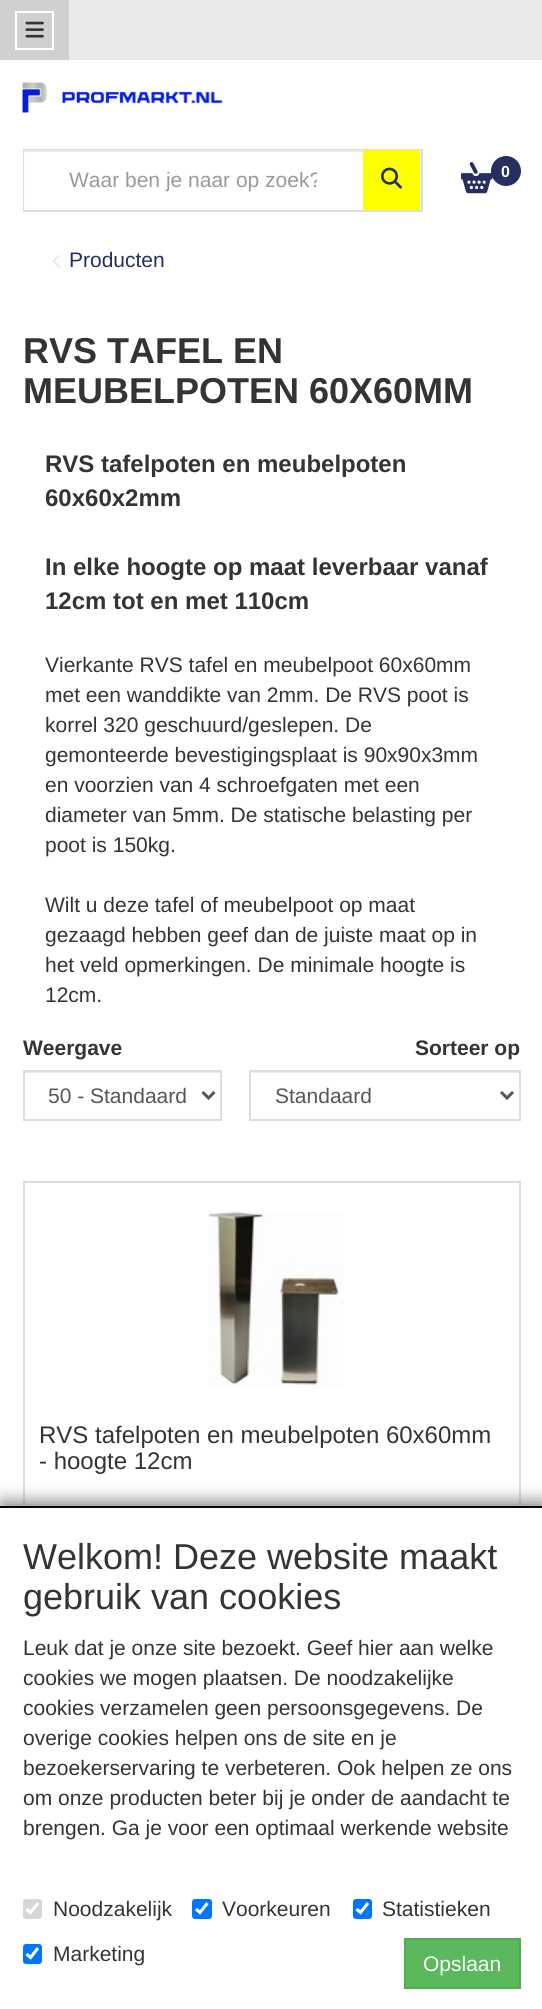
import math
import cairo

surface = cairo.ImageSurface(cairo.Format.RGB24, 542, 2009)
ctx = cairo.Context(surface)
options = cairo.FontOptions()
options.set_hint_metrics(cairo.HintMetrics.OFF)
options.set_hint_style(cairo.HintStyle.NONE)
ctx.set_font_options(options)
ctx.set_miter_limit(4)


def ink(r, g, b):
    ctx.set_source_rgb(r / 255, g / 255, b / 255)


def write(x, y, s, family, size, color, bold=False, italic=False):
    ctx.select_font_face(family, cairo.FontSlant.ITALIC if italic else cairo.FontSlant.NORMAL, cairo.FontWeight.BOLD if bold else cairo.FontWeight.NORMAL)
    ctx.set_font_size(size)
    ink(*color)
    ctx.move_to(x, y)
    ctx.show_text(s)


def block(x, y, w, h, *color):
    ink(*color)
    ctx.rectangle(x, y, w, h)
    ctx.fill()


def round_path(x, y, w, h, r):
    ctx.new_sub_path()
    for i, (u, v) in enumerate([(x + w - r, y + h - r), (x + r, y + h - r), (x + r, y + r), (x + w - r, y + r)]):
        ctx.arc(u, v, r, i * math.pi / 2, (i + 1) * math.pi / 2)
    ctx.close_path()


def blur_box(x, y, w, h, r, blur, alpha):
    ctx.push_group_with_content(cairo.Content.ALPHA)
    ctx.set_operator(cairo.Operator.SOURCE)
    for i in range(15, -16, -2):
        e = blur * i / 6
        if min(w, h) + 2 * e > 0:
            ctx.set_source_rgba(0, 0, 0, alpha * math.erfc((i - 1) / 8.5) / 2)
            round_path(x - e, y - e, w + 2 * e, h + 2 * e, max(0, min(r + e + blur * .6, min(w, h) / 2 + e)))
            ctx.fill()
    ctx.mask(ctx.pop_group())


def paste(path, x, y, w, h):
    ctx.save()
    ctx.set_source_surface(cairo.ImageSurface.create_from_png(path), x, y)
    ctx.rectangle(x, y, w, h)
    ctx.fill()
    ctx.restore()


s1 = dict(family="Liberation Sans", size=21, color=(153, 153, 153))
s2 = dict(family="Liberation Sans", size=16, color=(255, 255, 255), bold=True)
s3 = dict(family="Liberation Sans", size=21, color=(37, 47, 96))
s4 = dict(family="Liberation Sans", size=36, color=(52, 52, 52), bold=True)
s5 = dict(family="Liberation Sans", size=24, color=(52, 52, 52), bold=True)
s6 = dict(family="Liberation Sans", size=21, color=(52, 52, 52))
s7 = dict(family="Liberation Sans", size=21, color=(52, 52, 52), bold=True)
s8 = dict(family="Liberation Sans", size=21, color=(86, 86, 86))
s9 = dict(family="Liberation Sans", size=24, color=(52, 52, 52))
s10 = dict(family="Liberation Sans", size=36, color=(52, 52, 52))
s11 = dict(family="Liberation Sans", size=21, color=(255, 255, 255))

ink(255, 255, 255)
ctx.paint()
block(69, 0, 473, 60, 234, 234, 235)
block(0, 0, 69, 60, 208, 208, 210)
ctx.rectangle(16, 12, 37, 37)
ink(255, 255, 255)
ctx.stroke()
paste("pic1.png", 25, 21, 19, 17)
paste("pic2.png", 22, 82, 200, 31)
ctx.rectangle(24, 150, 398, 61)
ink(221, 221, 221)
ctx.stroke()
block(24, 152, 1, 58, 254, 254, 254)
block(24, 150, 344, 2, 235, 235, 235)
ctx.save()
ctx.rectangle(69, 168, 248, 24)
ctx.clip()
write(69, 187, "Waar ben je naar op zoek?", **s1)
ctx.restore()
block(363, 150, 57, 60, 255, 255, 0)
paste("pic3.png", 381, 167, 21, 22)
paste("pic4.png", 461, 162, 32, 32)
ink(37, 47, 96)
ctx.arc(506, 171, 15, 0, 2 * math.pi)
ctx.fill()
write(501, 177, "0", **s2)
paste("pic5.png", 52, 255, 8, 13)
write(69, 267, "Producten", **s3)
write(23, 363, "RVS TAFEL EN", **s4)
write(23, 403, "MEUBELPOTEN 60X60MM", **s4)
write(45, 472, "RVS tafelpoten en meubelpoten", **s5)
write(45, 506, "60x60x2mm", **s5)
write(45, 575, "In elke hoogte op maat leverbaar vanaf", **s5)
write(45, 609, "12cm tot en met 110cm", **s5)
write(45, 672, "Vierkante RVS tafel en meubelpoot 60x60mm", **s6)
write(45, 702, "met een wanddikte van 2mm. De RVS poot is", **s6)
write(45, 732, "korrel 320 geschuurd/geslepen. De", **s6)
write(45, 762, "gemonteerde bevestigingsplaat is 90x90x3mm", **s6)
write(45, 792, "en voorzien van 4 schroefgaten met een", **s6)
write(45, 822, "diameter van 5mm. De statische belasting per", **s6)
write(45, 852, "poot is 150kg.", **s6)
write(45, 912, "Wilt u deze tafel of meubelpoot op maat", **s6)
write(45, 942, "gezaagd hebben geef dan de juiste maat op in", **s6)
write(45, 972, "het veld opmerkingen. De minimale hoogte is", **s6)
write(45, 1002, "12cm.", **s6)
write(23, 1055, "Weergave", **s7)
block(24, 1072, 197, 1, 236, 236, 236)
ctx.rectangle(24, 1071, 197, 49)
ink(221, 221, 221)
ctx.stroke()
ctx.new_path()
ctx.move_to(202.5, 1092)
ctx.line_to(208.5, 1098)
ctx.line_to(214.5, 1092)
ink(86, 86, 86)
ctx.set_line_width(3)
ctx.stroke()
write(48, 1103, "50 - Standaard", **s8)
write(415, 1055, "Sorteer op", **s7)
block(251, 1072, 268, 1, 236, 236, 236)
ctx.rectangle(250, 1071, 270, 49)
ink(221, 221, 221)
ctx.set_line_width(2)
ctx.stroke()
ctx.new_path()
ctx.move_to(501, 1092)
ctx.line_to(507, 1098)
ctx.line_to(513, 1092)
ink(86, 86, 86)
ctx.set_line_width(3)
ctx.stroke()
write(275, 1103, "Standaard", **s8)
ctx.rectangle(24, 1182, 496, 424)
ink(221, 221, 221)
ctx.set_line_width(2)
ctx.stroke()
paste("pic6.png", 208, 1211, 136, 176)
write(39, 1443, "RVS tafelpoten en meubelpoten 60x60mm", **s9)
write(39, 1469, "- hoogte 12cm", **s9)
ink(128, 128, 128)
blur_box(2, 1502, 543, 504, 0, 9, 1)
block(0, 1508, 542, 501, 255, 255, 255)
block(0, 1506, 542, 2, 0, 0, 0)
write(23, 1569, "Welkom! Deze website maakt", **s10)
write(23, 1609, "gebruik van cookies", **s10)
write(23, 1655, "Leuk dat je onze site bezoekt. Geef hier aan welke", **s6)
write(23, 1685, "cookies we mogen plaatsen. De noodzakelijke", **s6)
write(23, 1715, "cookies verzamelen geen persoonsgegevens. De", **s6)
write(23, 1745, "overige cookies helpen ons de site en je", **s6)
write(23, 1775, "bezoekerservaring te verbeteren. Ook helpen ze ons", **s6)
write(23, 1805, "om onze producten beter bij je onder de aandacht te", **s6)
write(23, 1835, "brengen. Ga je voor een optimaal werkende website", **s6)
ink(214, 214, 214)
round_path(23, 1899, 19, 20, 3)
ctx.fill()
ctx.new_path()
ctx.move_to(26.5, 1909)
ctx.line_to(30.5, 1912.5)
ctx.line_to(38, 1903)
ink(255, 255, 255)
ctx.set_line_width(3.1)
ctx.stroke()
write(53, 1916, "Noodzakelijk", **s6)
ink(0, 117, 255)
round_path(192, 1899, 20, 20, 3)
ctx.fill()
ctx.new_path()
ctx.move_to(196, 1909)
ctx.line_to(200, 1912.5)
ctx.line_to(207.5, 1903)
ink(255, 255, 255)
ctx.stroke()
write(222, 1916, "Voorkeuren", **s6)
ink(0, 117, 255)
round_path(353, 1899, 19, 20, 3)
ctx.fill()
ctx.new_path()
ctx.move_to(356.5, 1909)
ctx.line_to(360.5, 1912.5)
ctx.line_to(368, 1903)
ink(255, 255, 255)
ctx.stroke()
write(382, 1916, "Statistieken", **s6)
ink(0, 117, 255)
round_path(23, 1944, 19, 20, 3)
ctx.fill()
ctx.new_path()
ctx.move_to(26.5, 1954)
ctx.line_to(30.5, 1957.5)
ctx.line_to(38, 1948)
ink(255, 255, 255)
ctx.stroke()
write(53, 1961, "Marketing", **s6)
ink(92, 184, 92)
ctx.rectangle(405, 1939, 115, 49)
ctx.fill_preserve()
ink(76, 174, 76)
ctx.set_line_width(2)
ctx.stroke()
write(423, 1971, "Opslaan", **s11)
surface.write_to_png("screenshot.png")
